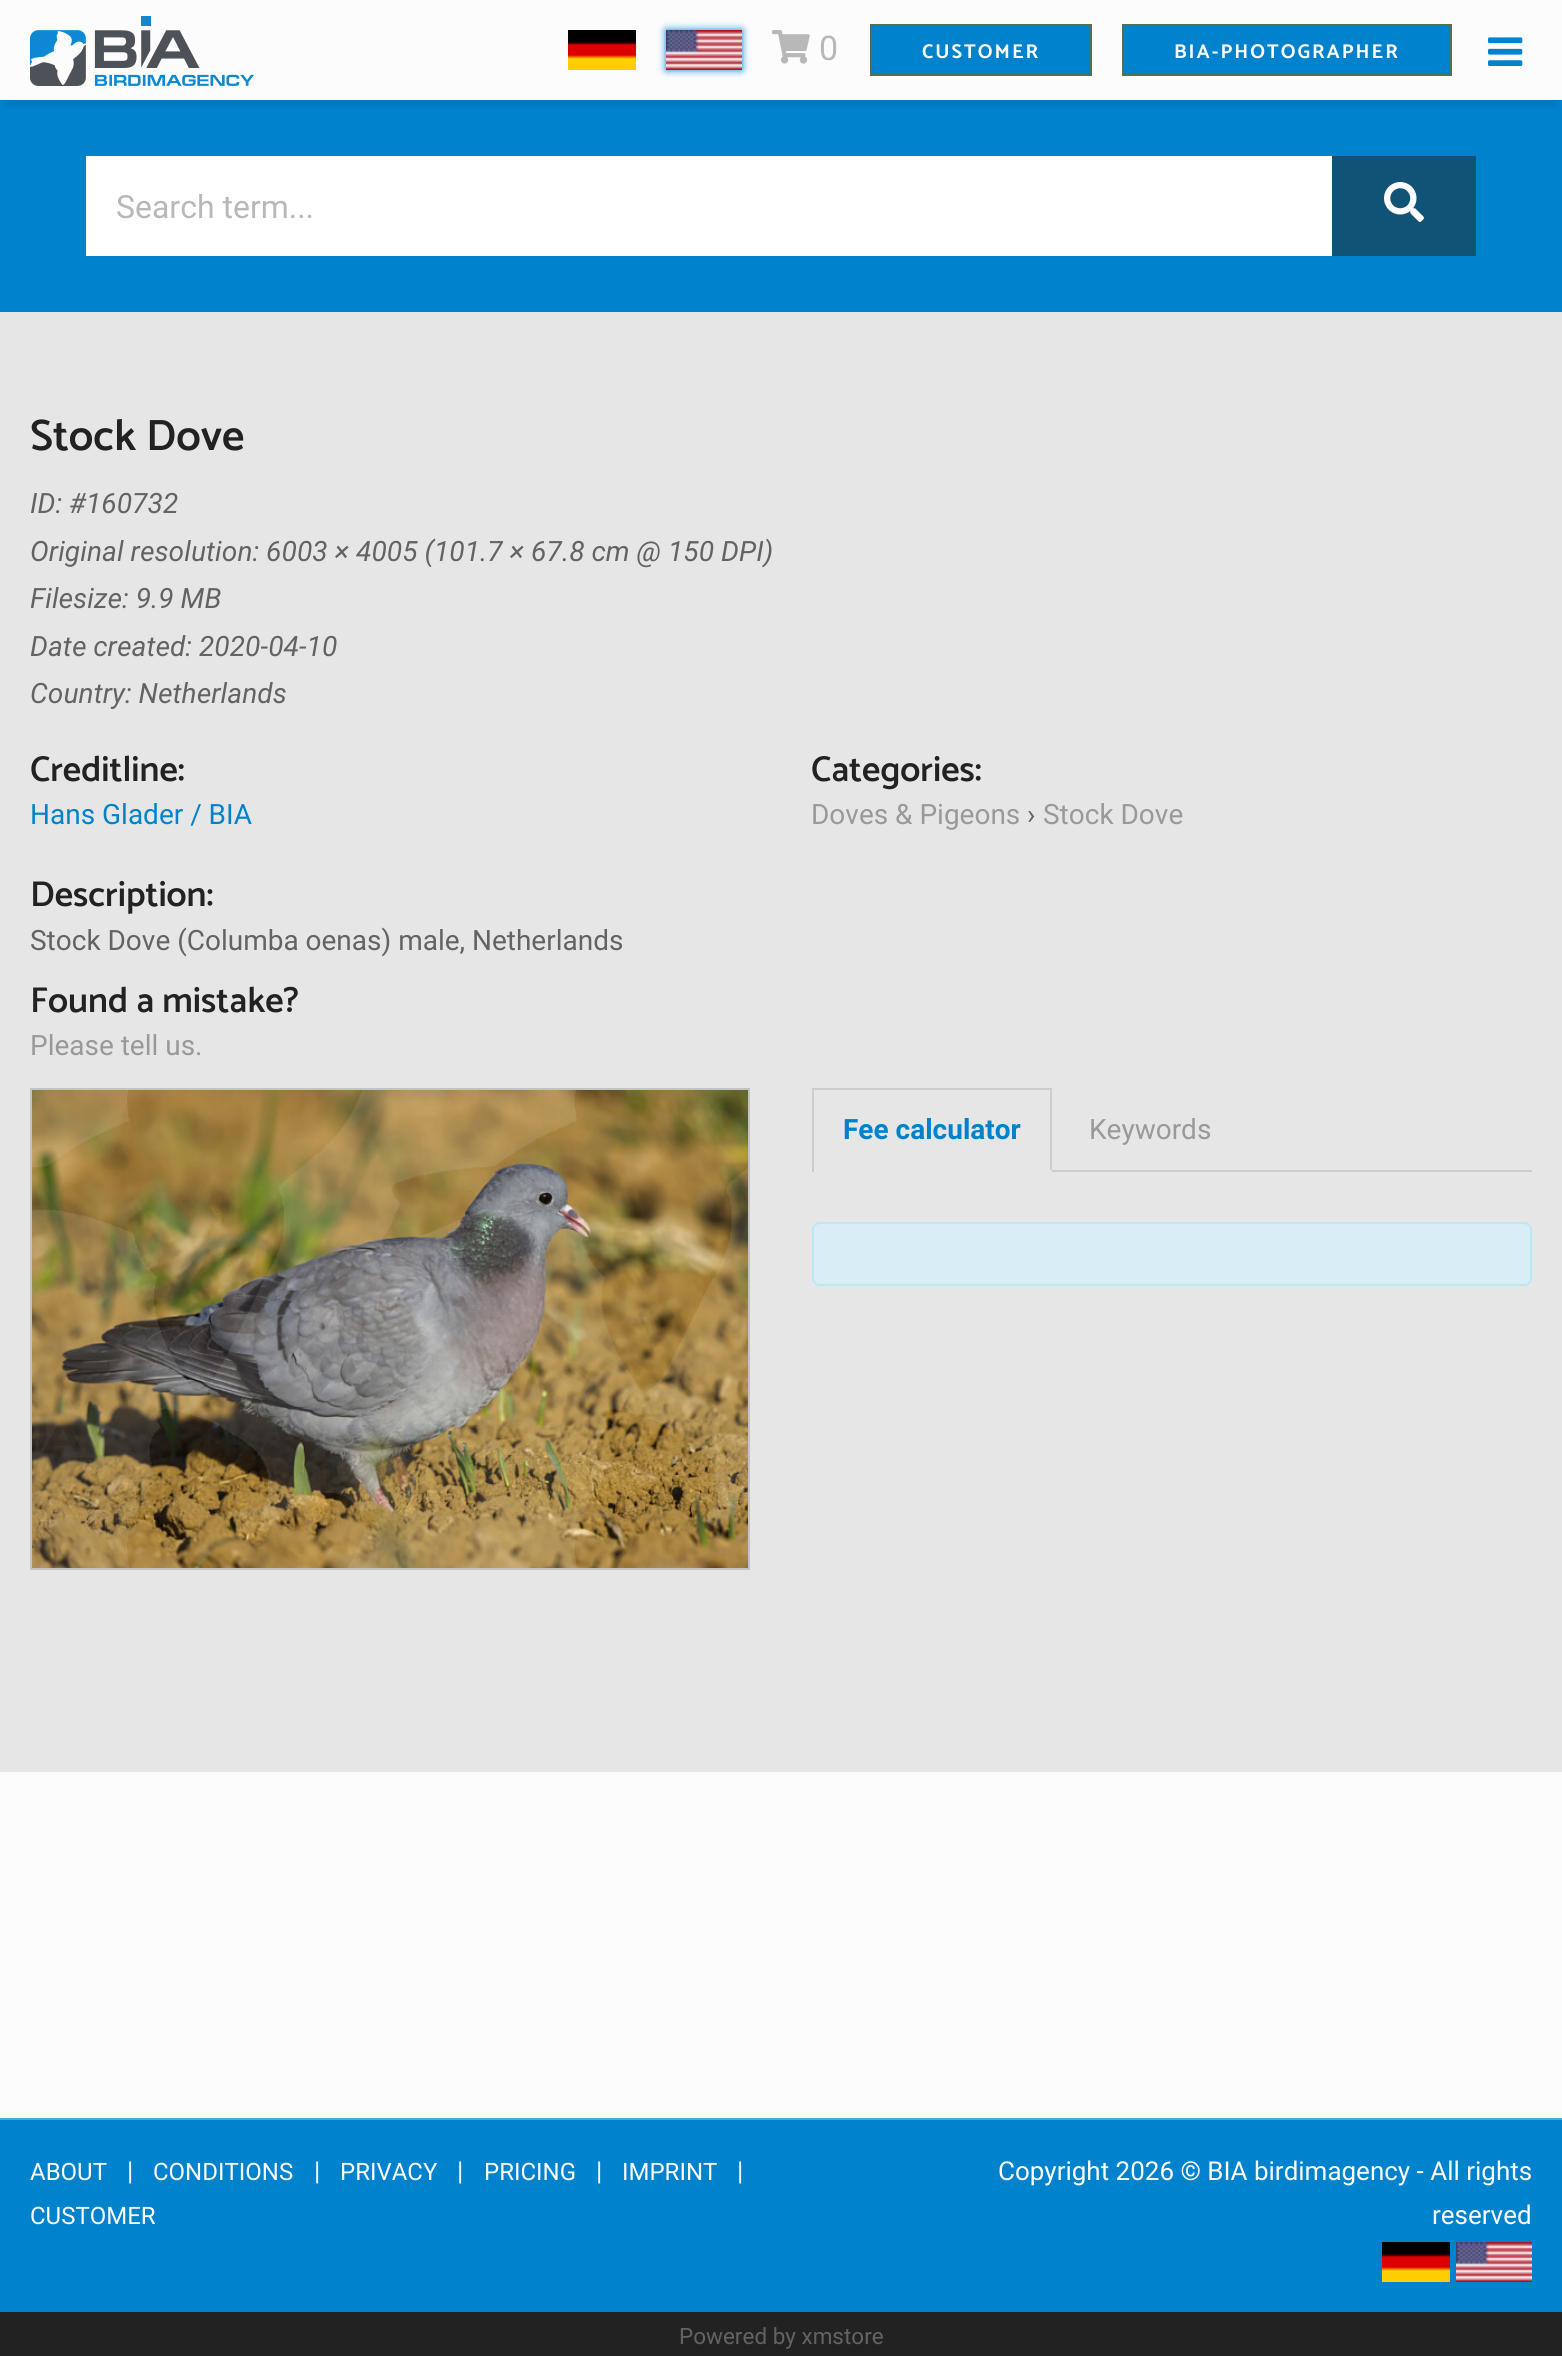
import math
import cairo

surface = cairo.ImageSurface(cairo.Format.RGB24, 1562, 2356)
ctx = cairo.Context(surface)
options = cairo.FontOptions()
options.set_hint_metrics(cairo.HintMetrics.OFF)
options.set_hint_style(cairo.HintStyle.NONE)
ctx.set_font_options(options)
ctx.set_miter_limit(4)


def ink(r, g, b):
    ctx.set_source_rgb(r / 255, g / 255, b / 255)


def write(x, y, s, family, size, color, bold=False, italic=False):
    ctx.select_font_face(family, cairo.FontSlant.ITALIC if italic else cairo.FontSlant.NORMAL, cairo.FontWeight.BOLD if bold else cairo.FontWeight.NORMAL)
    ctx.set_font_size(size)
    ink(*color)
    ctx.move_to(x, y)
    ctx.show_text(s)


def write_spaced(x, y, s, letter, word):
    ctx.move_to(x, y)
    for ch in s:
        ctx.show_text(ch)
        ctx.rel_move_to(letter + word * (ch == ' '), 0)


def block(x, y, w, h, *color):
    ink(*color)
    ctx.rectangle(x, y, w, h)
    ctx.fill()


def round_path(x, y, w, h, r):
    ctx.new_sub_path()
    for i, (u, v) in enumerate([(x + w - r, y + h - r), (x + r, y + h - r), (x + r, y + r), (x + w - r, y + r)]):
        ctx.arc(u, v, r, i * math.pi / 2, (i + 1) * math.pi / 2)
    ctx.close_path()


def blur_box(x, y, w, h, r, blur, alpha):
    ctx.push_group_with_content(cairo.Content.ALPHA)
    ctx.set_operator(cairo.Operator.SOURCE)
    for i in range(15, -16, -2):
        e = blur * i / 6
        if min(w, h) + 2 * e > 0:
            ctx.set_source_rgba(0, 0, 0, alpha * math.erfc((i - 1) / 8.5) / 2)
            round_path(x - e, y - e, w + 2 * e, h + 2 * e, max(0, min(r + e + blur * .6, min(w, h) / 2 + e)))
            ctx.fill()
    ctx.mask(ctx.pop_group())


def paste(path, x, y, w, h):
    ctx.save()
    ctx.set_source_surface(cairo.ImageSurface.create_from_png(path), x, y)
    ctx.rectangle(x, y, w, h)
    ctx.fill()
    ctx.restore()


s1 = dict(family="Roboto", size=32, color=(184, 184, 184))
s2 = dict(family="Catamaran SemiBold", size=44, color=(34, 34, 34))
s3 = dict(family="Roboto", size=28, color=(99, 99, 99), italic=True)
s4 = dict(family="Catamaran SemiBold", size=36, color=(34, 34, 34))
s5 = dict(family="Roboto", size=28, color=(0, 131, 204))
s6 = dict(family="Roboto", size=28, color=(153, 153, 153))
s7 = dict(family="Roboto", size=28, color=(99, 99, 99))
s8 = dict(family="Roboto", size=28, color=(0, 131, 204), bold=True)
s9 = dict(family="Roboto", size=24, color=(252, 252, 252))
s10 = dict(family="Roboto", size=26, color=(252, 252, 252))
s11 = dict(family="Roboto", size=22.5, color=(99, 99, 99))

ink(252, 252, 252)
ctx.paint()
block(0, 100, 1562, 212, 0, 131, 204)
ctx.save()
ctx.rectangle(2, 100, 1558, 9)
ctx.clip()
ink(0, 0, 0)
blur_box(6, 16, 1550, 88, 0, 5, 0.12)
ctx.restore()
paste("pic1.png", 30, 16, 224, 70)
paste("pic2.png", 568, 30, 68, 40)
ink(0, 131, 204)
blur_box(666, 30, 76, 40, 0, 4, 1)
paste("pic3.png", 666, 30, 76, 40)
paste("pic4.png", 772, 30, 38, 34)
ctx.select_font_face("Roboto")
ctx.set_font_size(34)
ink(184, 184, 184)
write_spaced(819, 60, "0", 2, 0)
ink(0, 131, 204)
ctx.rectangle(871, 25, 220, 50)
ctx.fill_preserve()
ink(81, 111, 81)
ctx.stroke()
ctx.select_font_face("Catamaran", cairo.FontSlant.NORMAL, cairo.FontWeight.BOLD)
ctx.set_font_size(20)
ink(252, 252, 252)
write_spaced(922, 58, "CUSTOMER", 2, 0)
ink(0, 131, 204)
ctx.rectangle(1123, 25, 328, 50)
ctx.fill_preserve()
ink(81, 111, 81)
ctx.stroke()
ink(252, 252, 252)
write_spaced(1174, 58, "BIA-PHOTOGRAPHER", 2, 0)
paste("pic5.png", 1488, 37, 35, 29)
block(1332, 156, 144, 100, 17, 82, 119)
block(86, 156, 1246, 100, 255, 255, 255)
write(116, 218, "Search term...", **s1)
paste("pic6.png", 1384, 182, 40, 40)
block(0, 312, 1562, 1460, 230, 230, 230)
write(30, 450, "Stock Dove", **s2)
write(30, 513, "ID: #160732", **s3)
write(30, 561, "Original resolution: 6003 × 4005 (101.7 × 67.8 cm @ 150 DPI)", **s3)
write(30, 608, "Filesize: 9.9 MB", **s3)
write(30, 656, "Date created: 2020-04-10", **s3)
write(30, 703, "Country: Netherlands", **s3)
write(30, 781, "Creditline:", **s4)
write(30, 824, "Hans Glader / BIA", **s5)
write(811, 781, "Categories:", **s4)
write(811, 824, "Doves & Pigeons", **s6)
write(1027, 824, "›", **s7)
write(1043, 824, "Stock Dove", **s6)
write(30, 906, "Description:", **s4)
write(30, 950, "Stock Dove (Columba oenas) male, Netherlands", **s7)
write(30, 1012, "Found a mistake?", **s4)
write(30, 1055, "Please tell us.", **s6)
ctx.rectangle(31, 1089, 718, 480)
ink(195, 195, 195)
ctx.stroke()
paste("pic7.png", 32, 1090, 716, 478)
block(1052, 1170, 480, 2, 204, 204, 204)
block(812, 1088, 240, 2, 204, 204, 204)
block(1050, 1088, 2, 84, 204, 204, 204)
block(1050, 1170, 2, 2, 230, 230, 230)
block(812, 1088, 2, 84, 204, 204, 204)
write(843, 1139, "Fee calculator", **s8)
write(1089, 1139, "Keywords", **s6)
ink(217, 237, 247)
round_path(813, 1223, 718, 62, 7)
ctx.fill_preserve()
ink(188, 232, 241)
ctx.stroke()
block(0, 2120, 1562, 192, 0, 131, 204)
block(0, 2118, 1562, 2, 76, 167, 218)
write(30, 2180, "ABOUT", **s9)
write(127, 2180, "|", **s10)
write(153, 2180, "CONDITIONS", **s9)
write(314, 2180, "|", **s10)
write(340, 2180, "PRIVACY", **s9)
write(457, 2180, "|", **s10)
write(484, 2180, "PRICING", **s9)
write(596, 2180, "|", **s10)
write(622, 2180, "IMPRINT", **s9)
write(737, 2180, "|", **s10)
write(30, 2224, "CUSTOMER", **s9)
write(998, 2180, "Copyright 2026 © BIA birdimagency - All rights", **s10)
write(1432, 2224, "reserved", **s10)
paste("pic2.png", 1382, 2242, 68, 40)
ink(0, 131, 204)
blur_box(1456, 2242, 76, 40, 0, 4, 1)
paste("pic3.png", 1456, 2242, 76, 40)
block(0, 2312, 1562, 44, 34, 34, 34)
write(679, 2344, "Powered by xmstore", **s11)
surface.write_to_png("screenshot.png")
